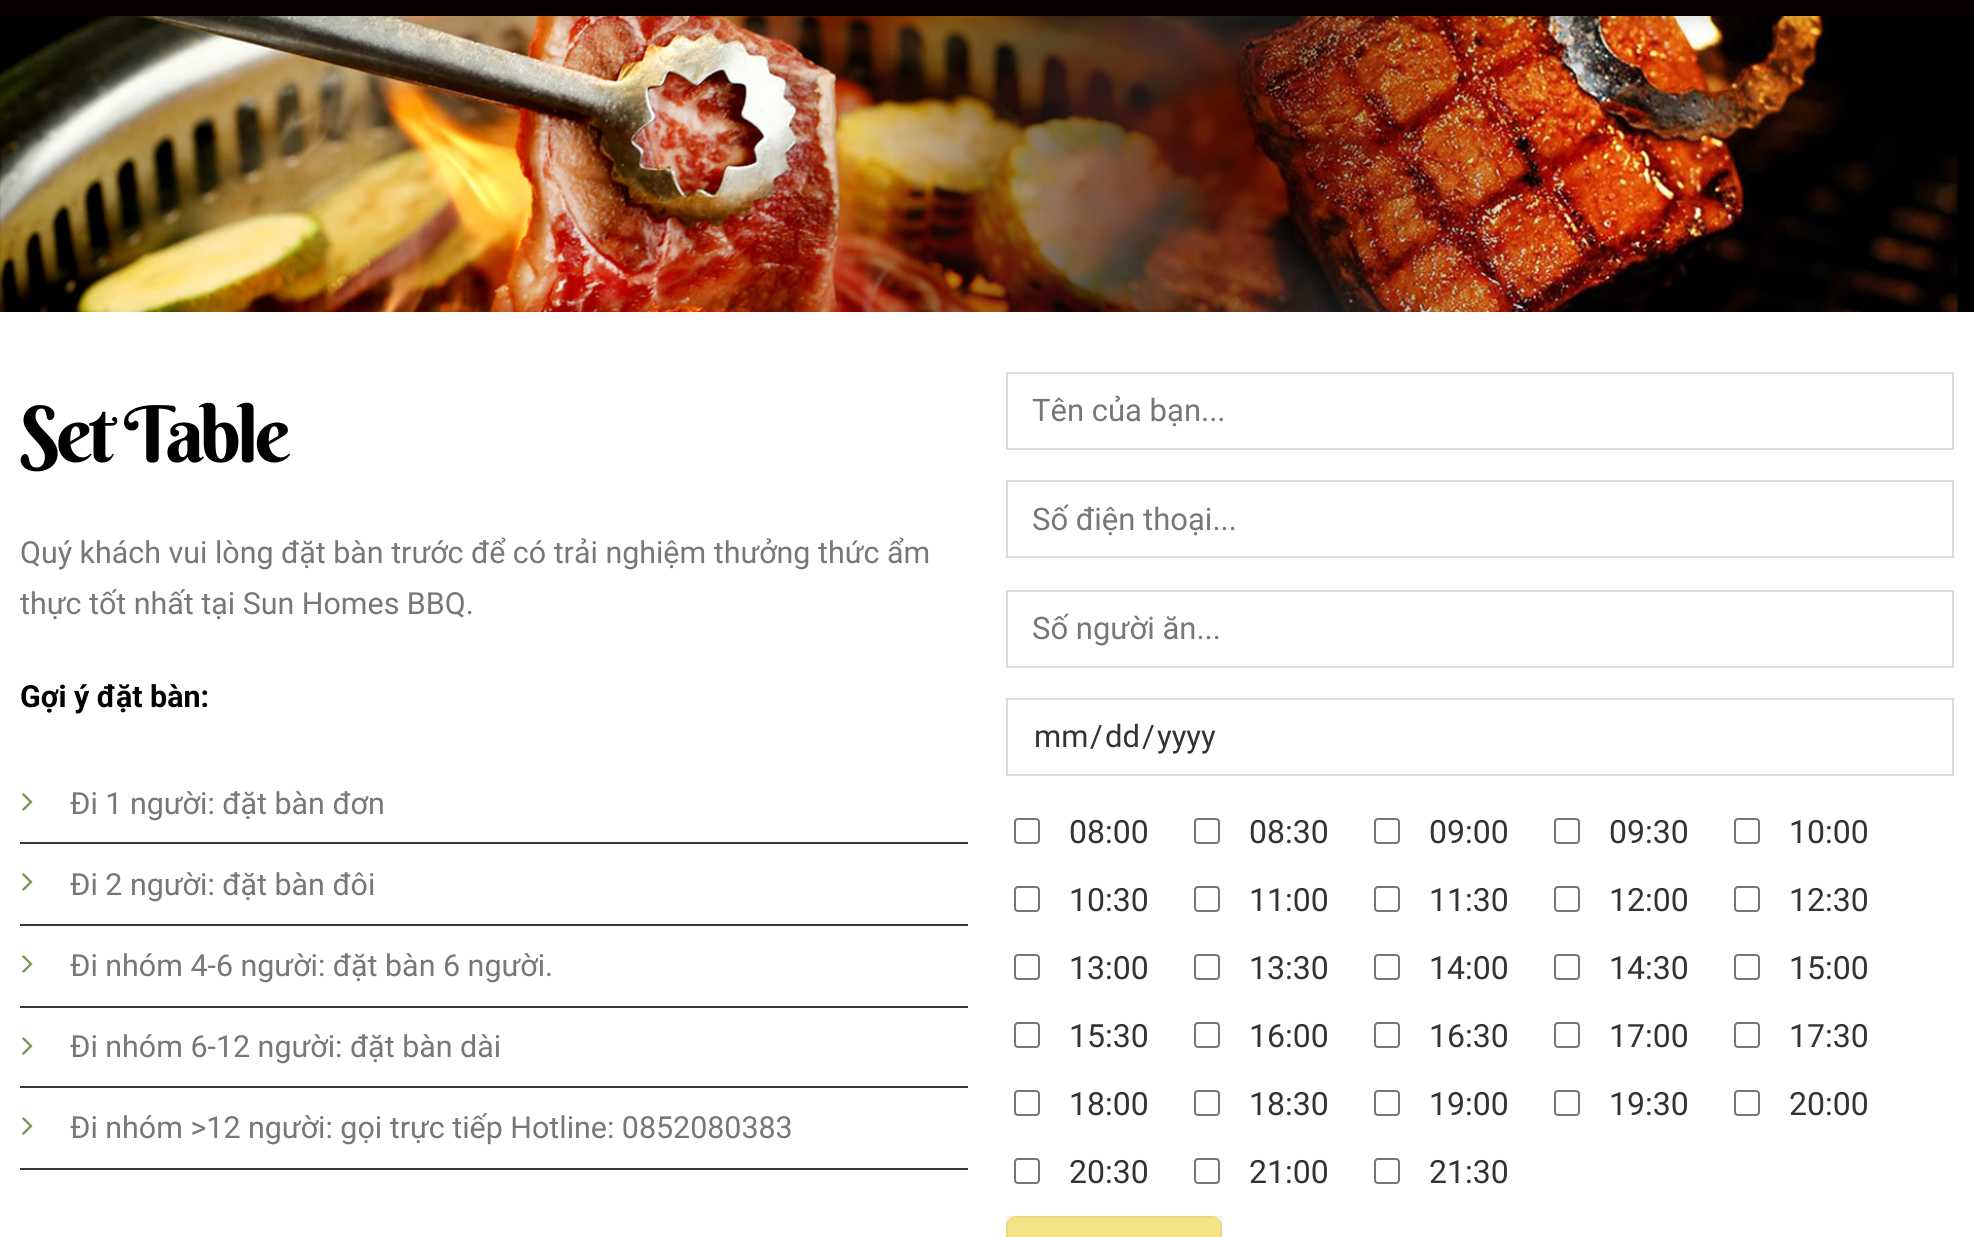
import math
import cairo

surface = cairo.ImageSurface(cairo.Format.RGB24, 1974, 1237)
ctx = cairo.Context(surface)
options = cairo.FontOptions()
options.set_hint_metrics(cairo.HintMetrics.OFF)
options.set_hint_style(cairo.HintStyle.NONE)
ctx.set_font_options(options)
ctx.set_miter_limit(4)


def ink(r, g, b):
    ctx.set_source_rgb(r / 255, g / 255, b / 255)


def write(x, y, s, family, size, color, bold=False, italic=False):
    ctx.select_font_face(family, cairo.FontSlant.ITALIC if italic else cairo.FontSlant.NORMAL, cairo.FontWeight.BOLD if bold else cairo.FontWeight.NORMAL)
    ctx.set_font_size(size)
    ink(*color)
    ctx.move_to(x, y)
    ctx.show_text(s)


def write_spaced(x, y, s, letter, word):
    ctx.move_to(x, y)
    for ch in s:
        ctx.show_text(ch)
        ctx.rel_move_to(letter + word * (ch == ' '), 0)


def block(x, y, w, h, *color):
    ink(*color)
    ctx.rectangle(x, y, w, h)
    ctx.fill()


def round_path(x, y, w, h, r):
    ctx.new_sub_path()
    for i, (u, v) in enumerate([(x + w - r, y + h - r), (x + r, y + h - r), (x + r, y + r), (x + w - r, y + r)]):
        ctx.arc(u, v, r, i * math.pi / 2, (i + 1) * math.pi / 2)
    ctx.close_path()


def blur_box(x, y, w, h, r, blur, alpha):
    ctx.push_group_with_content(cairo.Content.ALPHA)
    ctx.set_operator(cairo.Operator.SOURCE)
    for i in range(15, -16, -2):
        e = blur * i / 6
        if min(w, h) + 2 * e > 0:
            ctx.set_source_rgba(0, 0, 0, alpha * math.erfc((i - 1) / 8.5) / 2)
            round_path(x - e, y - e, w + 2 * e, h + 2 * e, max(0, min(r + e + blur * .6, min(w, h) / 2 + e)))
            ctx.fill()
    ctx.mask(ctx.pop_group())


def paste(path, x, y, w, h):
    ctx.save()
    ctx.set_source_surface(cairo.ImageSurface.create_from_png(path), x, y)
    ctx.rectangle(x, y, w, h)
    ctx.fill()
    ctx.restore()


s1 = dict(family="Roboto", size=30.4, color=(119, 119, 119))
s2 = dict(family="Roboto", size=30.4, color=(0, 0, 0), bold=True)
s3 = dict(family="Roboto", size=31, color=(119, 119, 119))
s4 = dict(family="Roboto", size=31, color=(51, 51, 51))
s5 = dict(family="Roboto", size=32, color=(51, 51, 51))

ink(255, 255, 255)
ctx.paint()
paste("pic1.png", 0, 16, 1974, 296)
ink(0, 0, 0)
blur_box(2, -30, 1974, 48, 0, 10, 0.15)
block(0, 0, 1974, 16, 10, 0, 0)
ctx.select_font_face("Berkshire Swash")
ctx.set_font_size(78)
ink(0, 0, 0)
write_spaced(20, 462, "Set Table", -4, 0)
write(20, 563, "Quý khách vui lòng đặt bàn trước để có trải nghiệm thưởng thức ẩm", **s1)
write(20, 614, "thực tốt nhất tại Sun Homes BBQ.", **s1)
write(20, 707, "Gợi ý đặt bàn:", **s2)
block(20, 842, 948, 2, 58, 58, 58)
paste("pic2.png", 22, 793, 11, 18)
write(70, 814, "Đi 1 người: đặt bàn đơn", **s1)
block(20, 924, 948, 2, 58, 58, 58)
paste("pic2.png", 22, 873, 11, 18)
write(70, 895, "Đi 2 người: đặt bàn đôi", **s1)
block(20, 1006, 948, 2, 58, 58, 58)
paste("pic2.png", 22, 955, 11, 18)
write(70, 976, "Đi nhóm 4-6 người: đặt bàn 6 người.", **s1)
block(20, 1086, 948, 2, 58, 58, 58)
paste("pic2.png", 22, 1037, 11, 18)
write(70, 1057, "Đi nhóm 6-12 người: đặt bàn dài", **s1)
block(20, 1168, 948, 2, 58, 58, 58)
paste("pic2.png", 22, 1117, 11, 18)
write(70, 1138, "Đi nhóm >12 người: gọi trực tiếp Hotline: 0852080383", **s1)
ctx.rectangle(1007, 373, 946, 76)
ink(221, 221, 221)
ctx.stroke()
write(1032, 421, "Tên của bạn...", **s3)
ctx.rectangle(1007, 481, 946, 76)
ink(221, 221, 221)
ctx.stroke()
write(1032, 530, "Số điện thoại...", **s3)
ctx.rectangle(1007, 591, 946, 76)
ink(221, 221, 221)
ctx.stroke()
write(1032, 639, "Số người ăn...", **s3)
ctx.rectangle(1007, 699, 946, 76)
ink(221, 221, 221)
ctx.stroke()
write(1034, 747, "mm", **s4)
write(1090, 747, "/", **s4)
write(1105, 747, "dd", **s4)
write(1142, 747, "/", **s4)
write(1157, 747, "yyyy", **s4)
round_path(1015, 819, 24, 24, 3)
ink(118, 118, 118)
ctx.stroke()
write(1069, 843, "08:00", **s5)
round_path(1195, 819, 24, 24, 3)
ink(118, 118, 118)
ctx.stroke()
write(1249, 843, "08:30", **s5)
round_path(1375, 819, 24, 24, 3)
ink(118, 118, 118)
ctx.stroke()
write(1429, 843, "09:00", **s5)
round_path(1555, 819, 24, 24, 3)
ink(118, 118, 118)
ctx.stroke()
write(1609, 843, "09:30", **s5)
round_path(1735, 819, 24, 24, 3)
ink(118, 118, 118)
ctx.stroke()
write(1789, 843, "10:00", **s5)
round_path(1015, 887, 24, 24, 3)
ink(118, 118, 118)
ctx.stroke()
write(1069, 911, "10:30", **s5)
round_path(1195, 887, 24, 24, 3)
ink(118, 118, 118)
ctx.stroke()
write(1249, 911, "11:00", **s5)
round_path(1375, 887, 24, 24, 3)
ink(118, 118, 118)
ctx.stroke()
write(1429, 911, "11:30", **s5)
round_path(1555, 887, 24, 24, 3)
ink(118, 118, 118)
ctx.stroke()
write(1609, 911, "12:00", **s5)
round_path(1735, 887, 24, 24, 3)
ink(118, 118, 118)
ctx.stroke()
write(1789, 911, "12:30", **s5)
round_path(1015, 955, 24, 24, 3)
ink(118, 118, 118)
ctx.stroke()
write(1069, 979, "13:00", **s5)
round_path(1195, 955, 24, 24, 3)
ink(118, 118, 118)
ctx.stroke()
write(1249, 979, "13:30", **s5)
round_path(1375, 955, 24, 24, 3)
ink(118, 118, 118)
ctx.stroke()
write(1429, 979, "14:00", **s5)
round_path(1555, 955, 24, 24, 3)
ink(118, 118, 118)
ctx.stroke()
write(1609, 979, "14:30", **s5)
round_path(1735, 955, 24, 24, 3)
ink(118, 118, 118)
ctx.stroke()
write(1789, 979, "15:00", **s5)
round_path(1015, 1023, 24, 24, 3)
ink(118, 118, 118)
ctx.stroke()
write(1069, 1047, "15:30", **s5)
round_path(1195, 1023, 24, 24, 3)
ink(118, 118, 118)
ctx.stroke()
write(1249, 1047, "16:00", **s5)
round_path(1375, 1023, 24, 24, 3)
ink(118, 118, 118)
ctx.stroke()
write(1429, 1047, "16:30", **s5)
round_path(1555, 1023, 24, 24, 3)
ink(118, 118, 118)
ctx.stroke()
write(1609, 1047, "17:00", **s5)
round_path(1735, 1023, 24, 24, 3)
ink(118, 118, 118)
ctx.stroke()
write(1789, 1047, "17:30", **s5)
round_path(1015, 1091, 24, 24, 3)
ink(118, 118, 118)
ctx.stroke()
write(1069, 1115, "18:00", **s5)
round_path(1195, 1091, 24, 24, 3)
ink(118, 118, 118)
ctx.stroke()
write(1249, 1115, "18:30", **s5)
round_path(1375, 1091, 24, 24, 3)
ink(118, 118, 118)
ctx.stroke()
write(1429, 1115, "19:00", **s5)
round_path(1555, 1091, 24, 24, 3)
ink(118, 118, 118)
ctx.stroke()
write(1609, 1115, "19:30", **s5)
round_path(1735, 1091, 24, 24, 3)
ink(118, 118, 118)
ctx.stroke()
write(1789, 1115, "20:00", **s5)
round_path(1015, 1159, 24, 24, 3)
ink(118, 118, 118)
ctx.stroke()
write(1069, 1183, "20:30", **s5)
round_path(1195, 1159, 24, 24, 3)
ink(118, 118, 118)
ctx.stroke()
write(1249, 1183, "21:00", **s5)
round_path(1375, 1159, 24, 24, 3)
ink(118, 118, 118)
ctx.stroke()
write(1429, 1183, "21:30", **s5)
ink(243, 227, 133)
round_path(1006, 1216, 216, 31, 10)
ctx.fill()
ctx.rectangle(1007, 1217, 214, 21)
ctx.set_source_rgba(0, 0, 0, 0.05)
ctx.stroke()
surface.write_to_png("screenshot.png")
